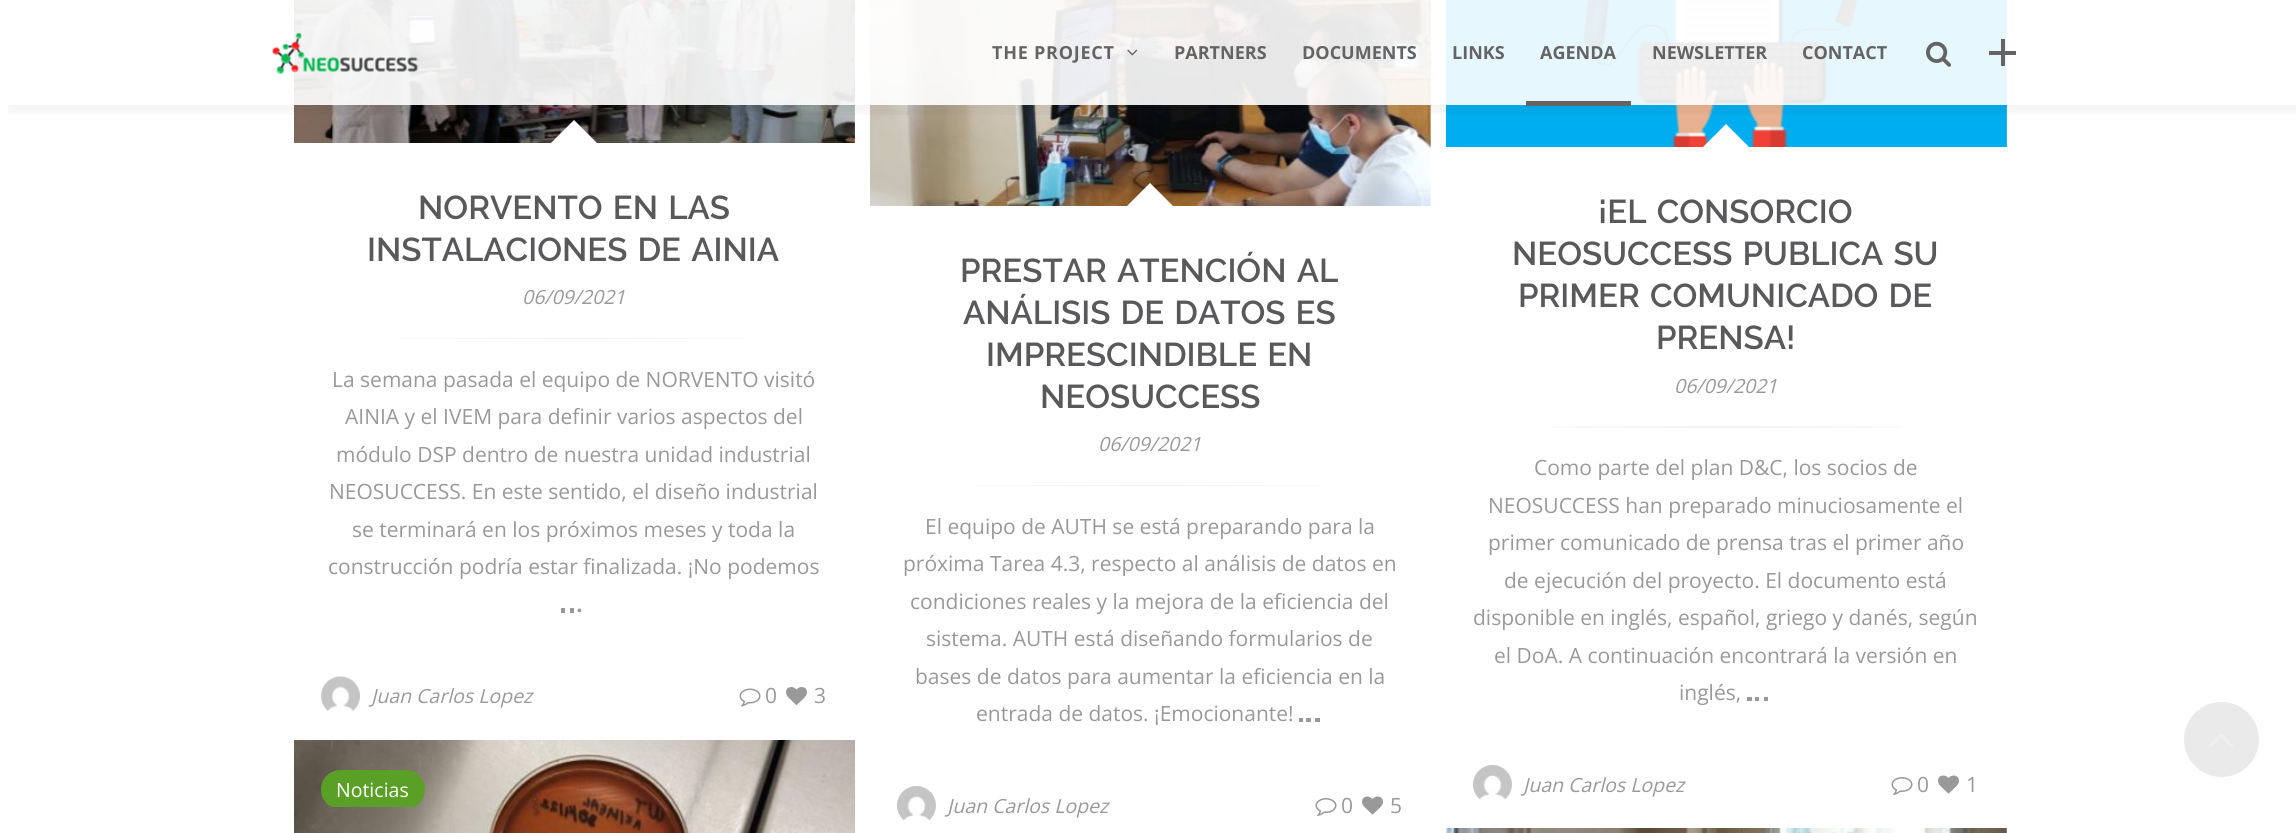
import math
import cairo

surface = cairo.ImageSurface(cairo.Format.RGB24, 2296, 833)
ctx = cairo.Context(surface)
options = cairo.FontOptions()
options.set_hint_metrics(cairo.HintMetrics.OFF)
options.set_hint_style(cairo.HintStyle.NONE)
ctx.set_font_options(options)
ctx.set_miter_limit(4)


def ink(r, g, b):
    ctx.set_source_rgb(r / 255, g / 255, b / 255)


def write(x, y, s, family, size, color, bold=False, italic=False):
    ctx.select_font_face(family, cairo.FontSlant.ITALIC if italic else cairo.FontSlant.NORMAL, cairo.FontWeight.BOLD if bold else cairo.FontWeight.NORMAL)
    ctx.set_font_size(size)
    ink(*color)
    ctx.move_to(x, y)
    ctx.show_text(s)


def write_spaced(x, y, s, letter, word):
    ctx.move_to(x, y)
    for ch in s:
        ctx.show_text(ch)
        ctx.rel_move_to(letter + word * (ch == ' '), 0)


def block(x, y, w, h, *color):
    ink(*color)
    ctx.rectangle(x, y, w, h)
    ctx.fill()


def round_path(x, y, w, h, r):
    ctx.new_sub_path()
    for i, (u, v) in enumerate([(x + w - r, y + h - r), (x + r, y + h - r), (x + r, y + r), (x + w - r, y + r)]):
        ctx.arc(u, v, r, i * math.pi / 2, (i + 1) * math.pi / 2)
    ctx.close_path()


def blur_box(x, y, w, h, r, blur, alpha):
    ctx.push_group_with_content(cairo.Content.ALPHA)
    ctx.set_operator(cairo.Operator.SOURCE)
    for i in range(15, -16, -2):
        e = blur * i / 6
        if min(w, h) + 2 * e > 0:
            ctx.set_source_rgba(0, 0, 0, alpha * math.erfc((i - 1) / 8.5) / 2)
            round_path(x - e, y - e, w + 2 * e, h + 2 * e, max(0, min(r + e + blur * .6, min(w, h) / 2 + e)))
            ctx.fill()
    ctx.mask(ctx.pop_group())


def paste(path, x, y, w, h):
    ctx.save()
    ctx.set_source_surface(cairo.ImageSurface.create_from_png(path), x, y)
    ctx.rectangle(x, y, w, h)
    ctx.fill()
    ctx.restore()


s1 = dict(family="Open Sans", size=18, color=(100, 100, 100), bold=True)
s2 = dict(family="Open Sans", size=19.5, color=(153, 153, 153), italic=True)
s3 = dict(family="Open Sans", size=21, color=(153, 153, 153))
s4 = dict(family="Raleway SemiBold", size=33, color=(89, 88, 91))
s5 = dict(family="Open Sans", size=19.5, color=(255, 255, 255))

ink(255, 255, 255)
ctx.paint()
paste("pic4.png", 294, 0, 561, 143)
ink(255, 255, 255)
ctx.new_path()
ctx.move_to(598, 144)
ctx.line_to(550, 144)
ctx.line_to(574, 120)
ctx.close_path()
ctx.fill()
paste("pic9.png", 870, 0, 561, 206)
paste("pic13.png", 1446, 0, 561, 147)
ctx.new_path()
ctx.move_to(1750, 148)
ctx.line_to(1702, 148)
ctx.line_to(1726, 124)
ctx.close_path()
ctx.fill()
ctx.save()
ctx.rectangle(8, 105, 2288, 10)
ctx.clip()
ink(0, 0, 0)
blur_box(8, 8, 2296, 105, 0, 7.5, 0.05)
ctx.restore()
ctx.set_source_rgba(1, 1, 1, 0.9)
ctx.rectangle(294, 0, 1713, 105)
ctx.fill()
paste("pic1.png", 272, 32, 146, 42)
ctx.select_font_face("Open Sans", cairo.FontSlant.NORMAL, cairo.FontWeight.BOLD)
ctx.set_font_size(18)
ink(100, 100, 100)
write_spaced(992, 59, "THE PROJECT", 0.75, 0)
paste("pic2.png", 1127, 49, 11, 7)
write(1174, 59, "PARTNERS", **s1)
write(1302, 59, "DOCUMENTS", **s1)
write(1452, 59, "LINKS", **s1)
write(1540, 59, "AGENDA", **s1)
block(1526, 101, 105, 5, 100, 100, 100)
write(1652, 59, "NEWSLETTER", **s1)
write(1802, 59, "CONTACT", **s1)
paste("pic3.png", 1926, 41, 25, 26)
block(2001, 39, 4, 27, 100, 100, 100)
block(1989, 51, 27, 4, 100, 100, 100)
ctx.select_font_face("Raleway SemiBold")
ctx.set_font_size(33)
ink(89, 88, 91)
write_spaced(418, 219, "NORVENTO EN LAS", 0, 2)
write_spaced(367, 261, "INSTALACIONES DE AINIA", 0, 2)
write(522, 304, "06/09/2021", **s2)
gradient = cairo.RadialGradient(0, 0, 0, 0, 0, 1)
gradient.set_matrix(cairo.Matrix(1 / 249, 0, 0, 1 / 1.1, -1 * 574 / 249, -1 * 338 / 1.1))
gradient.add_color_stop_rgba(0, 0.914, 0.914, 0.914, 1)
gradient.add_color_stop_rgba(1, 1, 1, 1, 1)
ctx.set_source(gradient)
round_path(398, 338, 352, 2, 1)
ctx.fill()
write(332, 387, "La semana pasada el equipo de NORVENTO visitó", **s3)
write(345, 424, "AINIA y el IVEM para definir varios aspectos del", **s3)
write(336, 462, "módulo DSP dentro de nuestra unidad industrial", **s3)
write(329, 499, "NEOSUCCESS. En este sentido, el diseño industrial", **s3)
write(352, 537, "se terminará en los próximos meses y toda la", **s3)
write(328, 574, "construcción podría estar finalizada. ¡No podemos", **s3)
block(561, 608, 4, 5, 153, 153, 153)
block(570, 608, 4, 5, 153, 153, 153)
paste("pic5.png", 577, 608, 5, 5)
paste("pic6.png", 321, 676, 39, 36)
write(371, 703, "Juan Carlos Lopez", **s2)
paste("pic7.png", 739, 688, 22, 19)
write(765, 703, "0", **s3)
paste("pic8.png", 786, 687, 21, 18)
write(814, 703, "3", **s3)
ink(255, 255, 255)
ctx.new_path()
ctx.move_to(1174, 207)
ctx.line_to(1126, 207)
ctx.line_to(1150, 183)
ctx.close_path()
ctx.fill()
ctx.select_font_face("Raleway SemiBold")
ctx.set_font_size(33)
ink(89, 88, 91)
write_spaced(960, 282, "PRESTAR ATENCIÓN AL", 0, 2)
write_spaced(963, 324, "ANÁLISIS DE DATOS ES", 0, 2)
write_spaced(986, 366, "IMPRESCINDIBLE EN", 0, 2)
write(1040, 408, "NEOSUCCESS", **s4)
write(1098, 451, "06/09/2021", **s2)
gradient = cairo.RadialGradient(0, 0, 0, 0, 0, 1)
gradient.set_matrix(cairo.Matrix(1 / 249, 0, 0, 1 / 1.1, -1 * 1150 / 249, -1 * 485 / 1.1))
gradient.add_color_stop_rgba(0, 0.914, 0.914, 0.914, 1)
gradient.add_color_stop_rgba(1, 1, 1, 1, 1)
ctx.set_source(gradient)
round_path(974, 485, 352, 2, 1)
ctx.fill()
write(925, 534, "El equipo de AUTH se está preparando para la", **s3)
write(903, 571, "próxima Tarea 4.3, respecto al análisis de datos en", **s3)
write(910, 609, "condiciones reales y la mejora de la eficiencia del", **s3)
write(926, 646, "sistema. AUTH está diseñando formularios de", **s3)
write(915, 684, "bases de datos para aumentar la eficiencia en la", **s3)
write(976, 721, "entrada de datos. ¡Emocionante!", **s3)
block(1299, 718, 4, 4, 153, 153, 153)
block(1306, 718, 5, 4, 153, 153, 153)
block(1315, 718, 5, 4, 153, 153, 153)
paste("pic10.png", 897, 786, 39, 35)
write(947, 813, "Juan Carlos Lopez", **s2)
paste("pic11.png", 1315, 798, 22, 18)
write(1341, 813, "0", **s3)
paste("pic12.png", 1362, 796, 21, 19)
write(1390, 813, "5", **s3)
ctx.select_font_face("Raleway SemiBold")
ctx.set_font_size(33)
ink(89, 88, 91)
write_spaced(1598, 223, "¡EL CONSORCIO", 0, 2)
write_spaced(1512, 265, "NEOSUCCESS PUBLICA SU", 0, 2)
write_spaced(1518, 307, "PRIMER COMUNICADO DE", 0, 2)
write(1656, 349, "PRENSA!", **s4)
write(1674, 393, "06/09/2021", **s2)
gradient = cairo.RadialGradient(0, 0, 0, 0, 0, 1)
gradient.set_matrix(cairo.Matrix(1 / 249, 0, 0, 1 / 1.1, -1 * 1726 / 249, -1 * 427 / 1.1))
gradient.add_color_stop_rgba(0, 0.914, 0.914, 0.914, 1)
gradient.add_color_stop_rgba(1, 1, 1, 1, 1)
ctx.set_source(gradient)
round_path(1550, 426, 352, 2, 1)
ctx.fill()
write(1534, 475, "Como parte del plan D&C, los socios de", **s3)
write(1488, 513, "NEOSUCCESS han preparado minuciosamente el", **s3)
write(1488, 550, "primer comunicado de prensa tras el primer año", **s3)
write(1504, 588, "de ejecución del proyecto. El documento está", **s3)
write(1473, 625, "disponible en inglés, español, griego y danés, según", **s3)
write(1494, 663, "el DoA. A continuación encontrará la versión en", **s3)
write(1679, 700, "inglés,", **s3)
block(1747, 697, 5, 4, 153, 153, 153)
block(1755, 697, 4, 4, 153, 153, 153)
block(1764, 697, 4, 4, 153, 153, 153)
paste("pic10.png", 1473, 765, 39, 35)
write(1523, 792, "Juan Carlos Lopez", **s2)
paste("pic11.png", 1891, 777, 22, 18)
write(1917, 792, "0", **s3)
paste("pic12.png", 1938, 775, 21, 19)
write(1966, 792, "1", **s3)
paste("pic14.png", 294, 740, 561, 93)
ctx.save()
ctx.rectangle(321, 770, 104, 37)
ctx.clip()
ink(91, 160, 38)
round_path(321, 770, 104, 39, 19.5)
ctx.fill()
ctx.restore()
write(336, 797, "Noticias", **s5)
paste("pic15.png", 1446, 828, 561, 5)
ink(234, 234, 234)
ctx.arc(2221.5, 739.5, 37.5, 0, 2 * math.pi)
ctx.fill()
paste("pic16.png", 2209, 734, 24, 13)
surface.write_to_png("screenshot.png")
